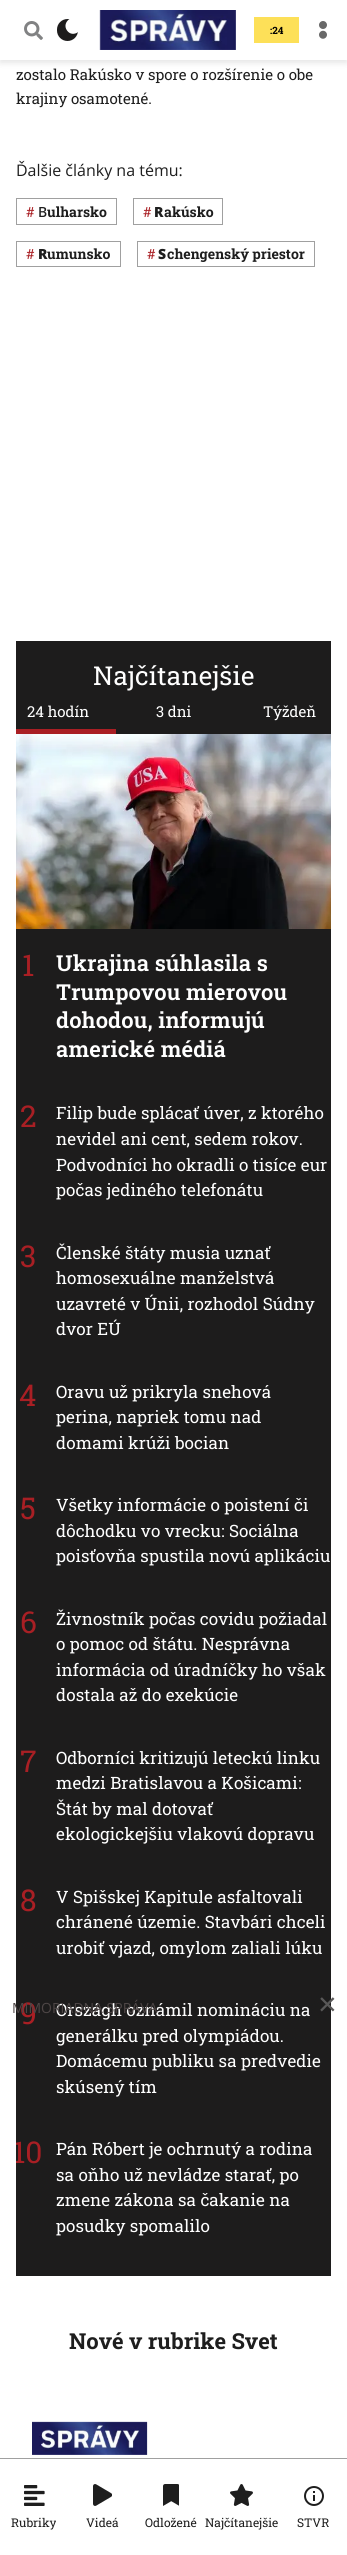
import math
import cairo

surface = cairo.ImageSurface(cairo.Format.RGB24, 347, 2555)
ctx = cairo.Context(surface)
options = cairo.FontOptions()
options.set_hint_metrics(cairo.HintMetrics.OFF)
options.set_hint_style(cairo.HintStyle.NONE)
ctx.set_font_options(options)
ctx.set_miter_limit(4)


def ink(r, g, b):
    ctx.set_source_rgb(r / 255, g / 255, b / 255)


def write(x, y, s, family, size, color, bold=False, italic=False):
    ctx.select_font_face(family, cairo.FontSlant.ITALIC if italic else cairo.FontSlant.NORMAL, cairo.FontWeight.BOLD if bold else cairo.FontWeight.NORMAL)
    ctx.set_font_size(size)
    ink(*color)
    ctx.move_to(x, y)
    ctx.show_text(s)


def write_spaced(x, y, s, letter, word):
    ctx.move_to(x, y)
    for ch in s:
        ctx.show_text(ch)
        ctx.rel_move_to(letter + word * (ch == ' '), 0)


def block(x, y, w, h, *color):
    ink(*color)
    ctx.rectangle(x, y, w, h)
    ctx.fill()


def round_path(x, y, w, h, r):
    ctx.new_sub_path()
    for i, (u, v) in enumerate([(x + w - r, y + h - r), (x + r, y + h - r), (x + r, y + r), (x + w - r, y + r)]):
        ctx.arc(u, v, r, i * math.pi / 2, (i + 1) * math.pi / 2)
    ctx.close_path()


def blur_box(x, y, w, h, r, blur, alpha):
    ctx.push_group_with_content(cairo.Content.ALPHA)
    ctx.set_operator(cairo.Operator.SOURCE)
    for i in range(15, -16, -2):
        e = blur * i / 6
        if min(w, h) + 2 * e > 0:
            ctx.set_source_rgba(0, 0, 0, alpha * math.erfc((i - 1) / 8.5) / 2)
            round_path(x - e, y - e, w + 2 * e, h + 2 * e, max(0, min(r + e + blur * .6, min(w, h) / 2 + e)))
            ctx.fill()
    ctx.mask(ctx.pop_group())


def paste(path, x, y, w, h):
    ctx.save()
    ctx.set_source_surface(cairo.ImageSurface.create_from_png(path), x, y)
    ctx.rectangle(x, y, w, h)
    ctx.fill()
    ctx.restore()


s1 = dict(family="Roboto Slab", size=10, color=(0, 0, 0), bold=True)
s2 = dict(family="Roboto Slab", size=15, color=(30, 30, 30))
s3 = dict(family="Open Sans", size=16, color=(30, 30, 30))
s4 = dict(family="Roboto Slab", size=14, color=(169, 31, 36))
s5 = dict(family="Noto Sans Medium", size=14, color=(30, 30, 30))
s6 = dict(family="Roboto Slab", size=14, color=(30, 30, 30), bold=True)
s7 = dict(family="Noto Sans Black", size=14, color=(30, 30, 30))
s8 = dict(family="Roboto Slab", size=15, color=(255, 255, 255))
s9 = dict(family="Roboto Slab", size=30, color=(169, 31, 36))
s10 = dict(family="Roboto Slab", size=22, color=(30, 30, 30), bold=True)
s11 = dict(family="Open Sans", size=14, color=(78, 70, 70))
s12 = dict(family="Liberation Sans", size=32, color=(89, 88, 88))
s13 = dict(family="Roboto Slab", size=12, color=(30, 30, 30))

ink(255, 255, 255)
ctx.paint()
ink(0, 0, 0)
blur_box(0, 3, 347, 60, 0, 3, 0.1)
block(0, 0, 347, 60, 255, 255, 255)
paste("pic1.png", 24, 21, 19, 19)
ink(29, 28, 28)
round_path(57, 19, 21, 22, 10.5)
ctx.fill()
ink(255, 255, 255)
ctx.new_path()
ctx.move_to(80, 21)
ctx.curve_to(86, 29.5, 73, 39, 67, 30.5)
ctx.curve_to(61, 22, 74, 12.5, 80, 21)
ctx.close_path()
ctx.fill()
paste("pic2.png", 99, 10, 137, 40)
block(254, 17, 45, 26, 253, 224, 88)
write(270, 34, ":24", **s1)
paste("pic3.png", 319, 21, 8, 18)
write(16, 80, "zostalo Rakúsko v spore o rozšírenie o obe", **s2)
write(16, 104, "krajiny osamotené.", **s2)
write(16, 176, "Ďalšie články na tému:", **s3)
ctx.rectangle(16.5, 198.5, 100, 26)
ink(160, 160, 160)
ctx.set_line_width(1)
ctx.stroke()
write(26, 217, "#", **s4)
write(38, 217, "B", **s5)
write(47, 217, "ulharsko", **s6)
ctx.rectangle(133.5, 198.5, 89, 26)
ink(160, 160, 160)
ctx.stroke()
write(143, 217, "#", **s4)
write(154, 217, "R", **s7)
write(164, 217, "akúsko", **s6)
ctx.rectangle(16.5, 241.5, 104, 25)
ink(160, 160, 160)
ctx.stroke()
write(26, 259, "#", **s4)
write(38, 259, "R", **s7)
write(47, 259, "umunsko", **s6)
ctx.rectangle(137.5, 241.5, 177, 25)
ink(160, 160, 160)
ctx.stroke()
write(147, 259, "#", **s4)
write(158, 259, "S", **s7)
write(167, 259, "chengenský priestor", **s6)
block(16, 641, 315, 1635, 29, 28, 28)
ctx.select_font_face("Roboto Slab")
ctx.set_font_size(26)
ink(255, 255, 255)
write_spaced(93, 685, "Najčítanejšie", 0.25, 0)
block(16, 729, 100, 5, 169, 31, 36)
write(27, 717, "24 hodín", **s8)
write(156, 717, "3 dni", **s8)
write(263, 717, "Týždeň", **s8)
paste("pic4.png", 16, 734, 315, 195)
write(22, 976, "1", **s9)
ctx.select_font_face("Roboto Slab SemiBold")
ctx.set_font_size(22)
ink(255, 255, 255)
write_spaced(56, 971, "Ukrajina súhlasila s", 0.1, 0)
write_spaced(56, 1000, "Trumpovou mierovou", 0.1, 0)
write_spaced(56, 1028, "dohodou, informujú", 0.1, 0)
write_spaced(56, 1057, "americké médiá", 0.1, 0)
write(20, 1127, "2", **s9)
ctx.set_font_size(17)
ink(255, 255, 255)
write_spaced(56, 1119, "Filip bude splácať úver, z ktorého", 0.1, 0)
write_spaced(56, 1145, "nevidel ani cent, sedem rokov.", 0.1, 0)
write_spaced(56, 1171, "Podvodníci ho okradli o tisíce eur", 0.1, 0)
write_spaced(56, 1196, "počas jediného telefonátu", 0.1, 0)
write(20, 1267, "3", **s9)
ctx.set_font_size(17)
ink(255, 255, 255)
write_spaced(56, 1259, "Členské štáty musia uznať", 0.1, 0)
write_spaced(56, 1284, "homosexuálne manželstvá", 0.1, 0)
write_spaced(56, 1310, "uzavreté v Únii, rozhodol Súdny", 0.1, 0)
write_spaced(56, 1335, "dvor EÚ", 0.1, 0)
write(19, 1406, "4", **s9)
ctx.set_font_size(17)
ink(255, 255, 255)
write_spaced(56, 1398, "Oravu už prikryla snehová", 0.1, 0)
write_spaced(56, 1423, "perina, napriek tomu nad", 0.1, 0)
write_spaced(56, 1449, "domami krúži bocian", 0.1, 0)
write(20, 1519, "5", **s9)
ctx.set_font_size(17)
ink(255, 255, 255)
write_spaced(56, 1511, "Všetky informácie o poistení či", 0.1, 0)
write_spaced(56, 1537, "dôchodku vo vrecku: Sociálna", 0.1, 0)
write_spaced(56, 1562, "poisťovňa spustila novú aplikáciu", 0.1, 0)
write(20, 1633, "6", **s9)
ctx.set_font_size(17)
ink(255, 255, 255)
write_spaced(56, 1625, "Živnostník počas covidu požiadal", 0.1, 0)
write_spaced(56, 1650, "o pomoc od štátu. Nesprávna", 0.1, 0)
write_spaced(56, 1676, "informácia od úradníčky ho však", 0.1, 0)
write_spaced(56, 1701, "dostala až do exekúcie", 0.1, 0)
write(20, 1772, "7", **s9)
ctx.set_font_size(17)
ink(255, 255, 255)
write_spaced(56, 1764, "Odborníci kritizujú leteckú linku", 0.1, 0)
write_spaced(56, 1789, "medzi Bratislavou a Košicami:", 0.1, 0)
write_spaced(56, 1815, "Štát by mal dotovať", 0.1, 0)
write_spaced(56, 1840, "ekologickejšiu vlakovú dopravu", 0.1, 0)
write(20, 1911, "8", **s9)
ctx.set_font_size(17)
ink(255, 255, 255)
write_spaced(56, 1903, "V Spišskej Kapitule asfaltovali", 0.1, 0)
write_spaced(56, 1928, "chránené územie. Stavbári chceli", 0.1, 0)
write_spaced(56, 1954, "urobiť vjazd, omylom zaliali lúku", 0.1, 0)
write(20, 2024, "9", **s9)
ctx.set_font_size(17)
ink(255, 255, 255)
write_spaced(56, 2016, "Országh oznámil nomináciu na", 0.1, 0)
write_spaced(56, 2042, "generálku pred olympiádou.", 0.1, 0)
write_spaced(56, 2067, "Domácemu publiku sa predvedie", 0.1, 0)
write_spaced(56, 2093, "skúsený tím", 0.1, 0)
ctx.save()
ctx.rectangle(16, 609, 315, 1667)
ctx.clip()
write(13, 2163, "10", **s9)
ctx.restore()
write_spaced(56, 2155, "Pán Róbert je ochrnutý a rodina", 0.1, 0)
write_spaced(56, 2181, "sa oňho už nevládze starať, po", 0.1, 0)
write_spaced(56, 2206, "zmene zákona sa čakanie na", 0.1, 0)
write_spaced(56, 2232, "posudky spomalilo", 0.1, 0)
write(69, 2349, "Nové v rubrike Svet", **s10)
paste("pic5.png", 32, 2421, 116, 34)
write(12, 2013, "MIMORIADNA SPRÁVA", **s11)
write(318, 2015, "×", **s12)
block(0, 2458, 347, 1, 160, 160, 160)
paste("pic6.png", 24, 2485, 21, 21)
write(11, 2527, "Rubriky", **s13)
paste("pic7.png", 93, 2484, 19, 22)
write(86, 2527, "Videá", **s13)
paste("pic8.png", 163, 2484, 16, 22)
write(145, 2527, "Odložené", **s13)
paste("pic9.png", 230, 2484, 23, 22)
write(205, 2527, "Najčítanejšie", **s13)
paste("pic10.png", 304, 2486, 20, 20)
write(297, 2527, "STVR", **s13)
surface.write_to_png("screenshot.png")
